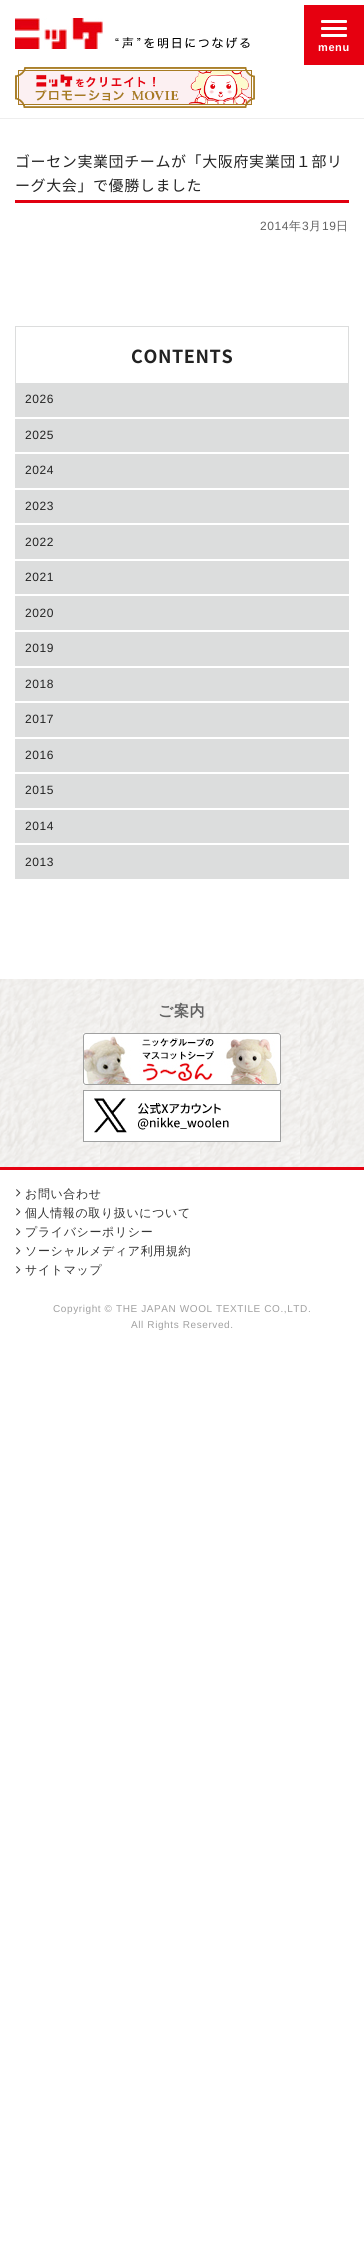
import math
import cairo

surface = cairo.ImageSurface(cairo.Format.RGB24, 364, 2261)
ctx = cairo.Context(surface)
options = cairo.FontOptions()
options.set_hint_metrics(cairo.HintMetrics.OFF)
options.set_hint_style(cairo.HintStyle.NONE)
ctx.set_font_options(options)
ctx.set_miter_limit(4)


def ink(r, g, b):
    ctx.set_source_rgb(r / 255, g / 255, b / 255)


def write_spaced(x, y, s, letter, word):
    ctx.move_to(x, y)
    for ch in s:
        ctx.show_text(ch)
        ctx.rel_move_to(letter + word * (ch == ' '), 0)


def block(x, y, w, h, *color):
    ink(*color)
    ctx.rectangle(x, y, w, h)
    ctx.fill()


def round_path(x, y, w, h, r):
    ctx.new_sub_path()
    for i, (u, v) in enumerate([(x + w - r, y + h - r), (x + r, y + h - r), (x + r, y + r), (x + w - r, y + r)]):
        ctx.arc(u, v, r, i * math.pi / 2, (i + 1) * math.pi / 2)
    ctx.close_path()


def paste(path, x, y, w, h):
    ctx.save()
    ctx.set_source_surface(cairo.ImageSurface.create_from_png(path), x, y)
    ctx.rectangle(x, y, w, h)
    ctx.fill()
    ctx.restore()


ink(255, 255, 255)
ctx.paint()
paste("pic1.png", 15, 18, 235, 31)
paste("pic2.png", 15, 67, 240, 41)
block(304, 5, 60, 60, 230, 0, 16)
ink(255, 255, 255)
round_path(321, 27, 26, 3, 1)
ctx.fill()
round_path(321, 20, 26, 3, 1)
ctx.fill()
round_path(321, 34, 26, 3, 1)
ctx.fill()
ctx.select_font_face("Liberation Sans", cairo.FontSlant.NORMAL, cairo.FontWeight.BOLD)
ctx.set_font_size(11)
write_spaced(318, 51, "menu", 0.6, 0)
block(0, 118, 364, 1, 238, 238, 238)
block(15, 200, 334, 3, 225, 0, 16)
ctx.select_font_face("Noto Sans JP")
ctx.set_font_size(15)
ink(34, 34, 34)
write_spaced(15, 167, "ゴーセン実業団チームが「大阪府実業団１部リ", 0.6, 0)
write_spaced(15, 191, "ーグ大会」で優勝しました", 0.6, 0)
ctx.select_font_face("Liberation Sans")
ctx.set_font_size(12)
ink(98, 98, 98)
write_spaced(260, 230, "2014", 0.6, 0)
ctx.select_font_face("WenQuanYi Zen Hei Medium")
write_spaced(289, 230, "年", 0.6, 0)
ctx.select_font_face("Liberation Sans")
write_spaced(302, 230, "3", 0.6, 0)
ctx.select_font_face("WenQuanYi Zen Hei Medium")
write_spaced(309, 230, "月", 0.6, 0)
ctx.select_font_face("Liberation Sans")
write_spaced(322, 230, "19", 0.6, 0)
ctx.select_font_face("WenQuanYi Zen Hei Medium")
write_spaced(336, 230, "日", 0.6, 0)
block(15, 326, 334, 1, 220, 221, 221)
block(348, 326, 1, 57, 220, 221, 221)
block(15, 326, 1, 57, 220, 221, 221)
ctx.select_font_face("Noto Sans JP", cairo.FontSlant.NORMAL, cairo.FontWeight.BOLD)
ctx.set_font_size(18)
ink(34, 34, 34)
write_spaced(131, 363, "CONTENTS", 0.6, 0)
block(15, 383, 334, 34, 220, 221, 221)
ctx.select_font_face("Liberation Sans")
ctx.set_font_size(12)
ink(34, 34, 34)
write_spaced(25, 403, "2026", 0.6, 0)
block(15, 419, 334, 33, 220, 221, 221)
ink(34, 34, 34)
write_spaced(25, 439, "2025", 0.6, 0)
block(15, 454, 334, 34, 220, 221, 221)
ink(34, 34, 34)
write_spaced(25, 474, "2024", 0.6, 0)
block(15, 490, 334, 33, 220, 221, 221)
ink(34, 34, 34)
write_spaced(25, 510, "2023", 0.6, 0)
block(15, 525, 334, 34, 220, 221, 221)
ink(34, 34, 34)
write_spaced(25, 546, "2022", 0.6, 0)
block(15, 561, 334, 33, 220, 221, 221)
ink(34, 34, 34)
write_spaced(25, 581, "2021", 0.6, 0)
block(15, 596, 334, 34, 220, 221, 221)
ink(34, 34, 34)
write_spaced(25, 617, "2020", 0.6, 0)
block(15, 632, 334, 34, 220, 221, 221)
ink(34, 34, 34)
write_spaced(25, 652, "2019", 0.6, 0)
block(15, 668, 334, 33, 220, 221, 221)
ink(34, 34, 34)
write_spaced(25, 688, "2018", 0.6, 0)
block(15, 703, 334, 34, 220, 221, 221)
ink(34, 34, 34)
write_spaced(25, 723, "2017", 0.6, 0)
block(15, 739, 334, 33, 220, 221, 221)
ink(34, 34, 34)
write_spaced(25, 759, "2016", 0.6, 0)
block(15, 774, 334, 34, 220, 221, 221)
ink(34, 34, 34)
write_spaced(25, 794, "2015", 0.6, 0)
block(15, 810, 334, 33, 220, 221, 221)
ink(34, 34, 34)
write_spaced(25, 830, "2014", 0.6, 0)
block(15, 845, 334, 34, 220, 221, 221)
ink(34, 34, 34)
write_spaced(25, 866, "2013", 0.6, 0)
paste("pic3.png", 0, 979, 364, 188)
block(0, 1167, 364, 3, 230, 0, 16)
ctx.select_font_face("WenQuanYi Zen Hei", cairo.FontSlant.NORMAL, cairo.FontWeight.BOLD)
ctx.set_font_size(15)
ink(98, 98, 98)
write_spaced(158, 1016, "ご案内", 0.6, 0)
paste("pic4.png", 83, 1033, 198, 52)
paste("pic5.png", 83, 1090, 198, 52)
paste("pic6.png", 16, 1189, 5, 8)
ctx.select_font_face("WenQuanYi Zen Hei Medium")
ctx.set_font_size(12)
ink(51, 51, 51)
write_spaced(25, 1198, "お問い合わせ", 0.6, 0)
paste("pic6.png", 16, 1208, 5, 8)
write_spaced(25, 1217, "個人情報の取り扱いについて", 0.6, 0)
paste("pic6.png", 16, 1228, 5, 8)
write_spaced(25, 1236, "プライバシーポリシー", 0.6, 0)
paste("pic6.png", 16, 1247, 5, 8)
write_spaced(25, 1255, "ソーシャルメディア利用規約", 0.6, 0)
paste("pic6.png", 16, 1266, 5, 8)
write_spaced(25, 1274, "サイトマップ", 0.6, 0)
ctx.select_font_face("Liberation Sans")
ctx.set_font_size(10)
ink(160, 160, 160)
write_spaced(53, 1312, "Copyright © THE JAPAN WOOL TEXTILE CO.,LTD.", 0.6, 0)
write_spaced(131, 1328, "All Rights Reserved.", 0.6, 0)
surface.write_to_png("screenshot.png")
